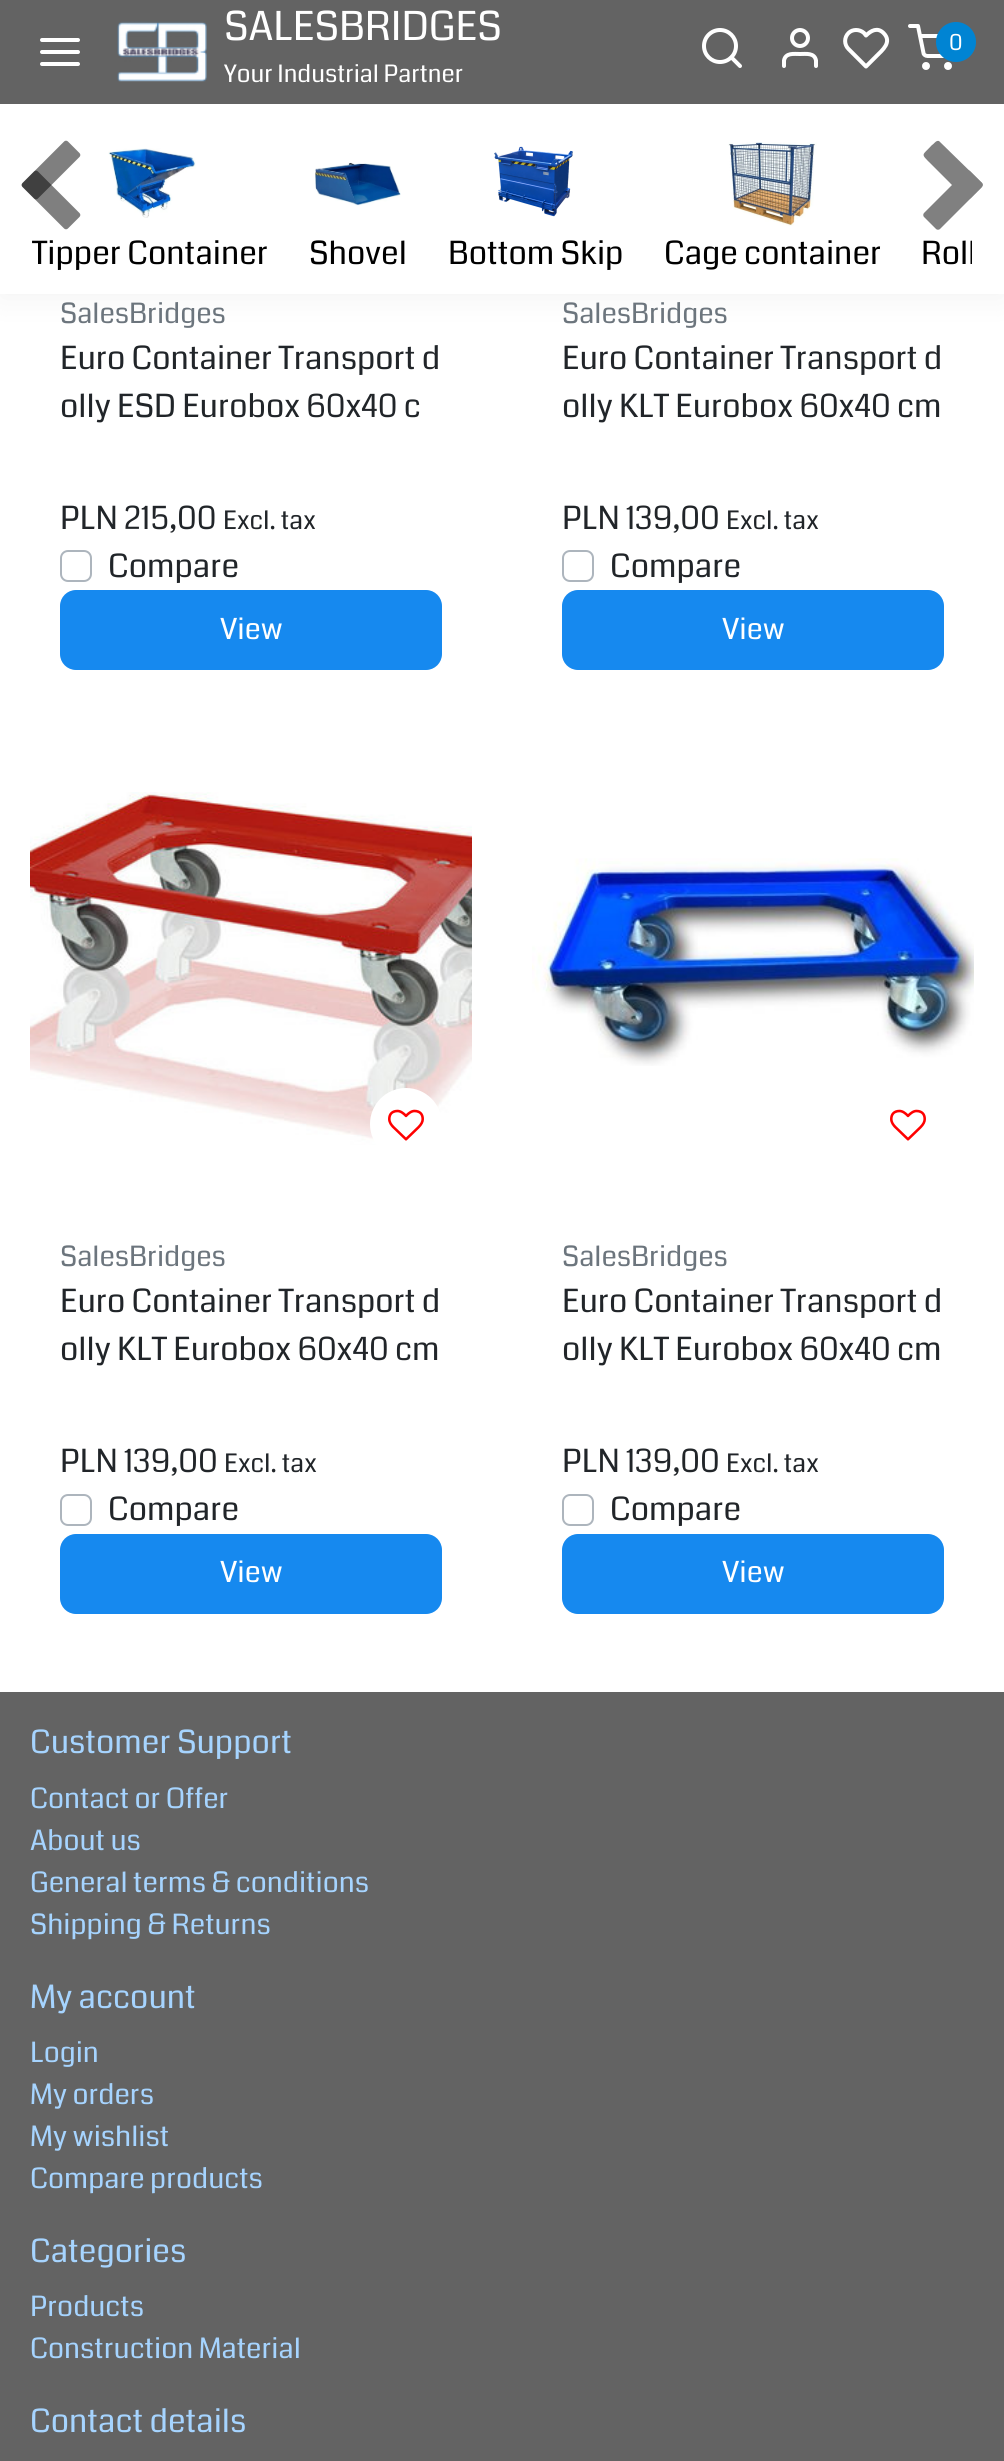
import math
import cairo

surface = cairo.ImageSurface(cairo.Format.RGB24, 1004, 2461)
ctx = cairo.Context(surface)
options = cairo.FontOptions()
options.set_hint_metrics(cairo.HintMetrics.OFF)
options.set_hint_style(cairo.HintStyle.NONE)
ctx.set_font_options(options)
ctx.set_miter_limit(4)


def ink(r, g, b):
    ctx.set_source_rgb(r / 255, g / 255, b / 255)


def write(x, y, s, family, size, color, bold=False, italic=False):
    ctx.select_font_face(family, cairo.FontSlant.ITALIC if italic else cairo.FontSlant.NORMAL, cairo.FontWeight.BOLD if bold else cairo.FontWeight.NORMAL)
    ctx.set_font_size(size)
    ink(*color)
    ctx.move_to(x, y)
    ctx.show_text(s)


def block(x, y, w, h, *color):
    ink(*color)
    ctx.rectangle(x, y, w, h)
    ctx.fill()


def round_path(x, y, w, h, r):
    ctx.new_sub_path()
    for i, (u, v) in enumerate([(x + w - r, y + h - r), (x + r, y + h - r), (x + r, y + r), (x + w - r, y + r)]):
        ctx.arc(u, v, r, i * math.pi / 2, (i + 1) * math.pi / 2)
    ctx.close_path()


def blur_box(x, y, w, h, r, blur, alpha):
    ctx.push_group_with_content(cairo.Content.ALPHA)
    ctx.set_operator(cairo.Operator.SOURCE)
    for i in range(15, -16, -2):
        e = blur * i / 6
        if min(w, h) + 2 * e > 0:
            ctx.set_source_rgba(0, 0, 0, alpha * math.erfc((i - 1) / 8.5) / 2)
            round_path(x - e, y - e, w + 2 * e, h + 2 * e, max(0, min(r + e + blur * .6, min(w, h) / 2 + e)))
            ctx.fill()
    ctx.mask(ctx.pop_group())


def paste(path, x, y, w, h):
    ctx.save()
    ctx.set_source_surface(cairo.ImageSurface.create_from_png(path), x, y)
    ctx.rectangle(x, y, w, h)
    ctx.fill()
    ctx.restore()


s1 = dict(family="Coda", size=40, color=(255, 255, 255))
s2 = dict(family="Coda", size=24, color=(255, 255, 255))
s3 = dict(family="Coda", size=22, color=(255, 255, 255))
s4 = dict(family="Coda", size=32, color=(0, 0, 0))
s5 = dict(family="Coda", size=28, color=(108, 117, 125))
s6 = dict(family="Coda", size=32, color=(33, 37, 41))
s7 = dict(family="Coda", size=25.5, color=(33, 37, 41))
s8 = dict(family="Coda", size=29, color=(255, 255, 255))
s9 = dict(family="Coda", size=32, color=(166, 212, 255))
s10 = dict(family="Coda", size=28, color=(166, 212, 255))

ink(255, 255, 255)
ctx.paint()
ink(0, 0, 0)
blur_box(0, 4, 1004, 294, 0, 16, 0.05)
block(0, 0, 1004, 104, 99, 99, 99)
ctx.new_path()
ctx.move_to(42, 52)
ctx.line_to(78, 52)
ctx.move_to(42, 40)
ctx.line_to(78, 40)
ctx.move_to(42, 64)
ctx.line_to(78, 64)
ink(255, 255, 255)
ctx.set_line_width(4)
ctx.set_line_cap(cairo.LineCap.ROUND)
ctx.set_line_join(cairo.LineJoin.ROUND)
ctx.stroke()
paste("pic1.png", 117, 21, 90, 61)
write(224, 40, "SALESBRIDGES", **s1)
write(224, 82, "Your Industrial Partner", **s2)
ctx.new_path()
ctx.arc(720, 46, 16, 0, 2 * math.pi)
ctx.set_line_cap(cairo.LineCap.BUTT)
ctx.set_line_join(cairo.LineJoin.MITER)
ctx.stroke()
ctx.new_path()
ctx.move_to(740, 66)
ctx.line_to(731.5, 57.5)
ctx.set_line_cap(cairo.LineCap.ROUND)
ctx.set_line_join(cairo.LineJoin.ROUND)
ctx.stroke()
ctx.new_path()
ctx.move_to(816, 66)
ctx.line_to(816, 60.5)
ctx.curve_to(814.5, 52.5, 806, 54, 800, 54)
ctx.curve_to(794, 54, 785.5, 52.5, 784, 60.5)
ctx.line_to(784, 66)
ctx.stroke()
ctx.arc(800, 38, 8, 0, 2 * math.pi)
ctx.set_line_cap(cairo.LineCap.BUTT)
ctx.set_line_join(cairo.LineJoin.MITER)
ctx.stroke()
ctx.new_path()
ctx.move_to(883.5, 33)
ctx.curve_to(877.5, 27, 871, 30.5, 866, 35.5)
ctx.line_to(864, 33)
ctx.curve_to(859.5, 29, 852.5, 29, 848.5, 33)
ctx.curve_to(844, 37.5, 844, 44.5, 848.5, 49)
ctx.line_to(866, 66.5)
ctx.line_to(876.5, 56)
ctx.curve_to(882.5, 50, 892.5, 42, 883.5, 33)
ctx.close_path()
ctx.set_line_cap(cairo.LineCap.ROUND)
ctx.set_line_join(cairo.LineJoin.ROUND)
ctx.stroke()
ctx.arc(926, 66, 2, 0, 2 * math.pi)
ctx.set_line_cap(cairo.LineCap.BUTT)
ctx.set_line_join(cairo.LineJoin.MITER)
ctx.stroke()
ctx.arc(948, 66, 2, 0, 2 * math.pi)
ctx.stroke()
ctx.new_path()
ctx.move_to(910, 26)
ctx.line_to(918, 26)
ctx.line_to(923.5, 53)
ctx.curve_to(923.5, 54.5, 925.5, 56, 927.5, 56)
ctx.line_to(947, 56)
ctx.curve_to(948.5, 56, 950.5, 54.5, 951, 53)
ctx.line_to(954, 36)
ctx.line_to(920, 36)
ctx.set_line_cap(cairo.LineCap.ROUND)
ctx.set_line_join(cairo.LineJoin.ROUND)
ctx.stroke()
ink(0, 132, 211)
ctx.arc(956, 42, 20, 0, 2 * math.pi)
ctx.fill()
write(949, 50, "0", **s3)
block(0, 104, 1004, 190, 255, 255, 255)
paste("pic2.png", 21, 140, 60, 90)
ink(128, 128, 128)
ctx.new_path()
ctx.move_to(966, 199)
ctx.line_to(931, 164)
ctx.curve_to(920, 153, 922, 156, 932, 145)
ctx.curve_to(934, 144, 936, 140, 939, 141)
ctx.line_to(982, 183)
ctx.curve_to(985, 186, 977, 191, 976, 193)
ctx.curve_to(974, 194, 969, 202, 966, 199)
ctx.close_path()
ctx.fill()
ctx.new_path()
ctx.move_to(966, 171)
ctx.line_to(924, 213)
ctx.curve_to(923, 214, 923, 216, 924, 217)
ctx.line_to(936, 229)
ctx.curve_to(937, 230, 939, 230, 940, 229)
ctx.line_to(982, 187)
ctx.curve_to(983, 186, 983, 184, 982, 183)
ctx.line_to(970, 171)
ctx.curve_to(969, 170, 967, 170, 966, 171)
ctx.close_path()
ctx.fill()
paste("pic3.png", 108, 148, 88, 70)
write(32, 264, "Tipper Container", **s4)
paste("pic4.png", 315, 162, 86, 44)
write(309, 264, "Shovel", **s4)
paste("pic5.png", 494, 146, 79, 71)
write(448, 264, "Bottom Skip", **s4)
paste("pic6.png", 728, 142, 89, 84)
write(664, 264, "Cage container", **s4)
ctx.save()
ctx.rectangle(32, 130, 940, 148)
ctx.clip()
write(921, 264, "Roll", **s4)
ctx.restore()
write(60, 323, "SalesBridges", **s5)
write(60, 369, "Euro Container Transport d", **s6)
write(60, 417, "olly ESD Eurobox 60x40 c", **s6)
write(60, 529, "PLN 215,00", **s6)
write(223, 529, "Excl. tax", **s7)
round_path(61, 551, 30, 30, 7)
ink(173, 181, 189)
ctx.set_line_width(2)
ctx.set_line_cap(cairo.LineCap.BUTT)
ctx.set_line_join(cairo.LineJoin.MITER)
ctx.stroke()
write(108, 577, "Compare", **s6)
ink(22, 137, 239)
round_path(61, 591, 380, 78, 15)
ctx.fill_preserve()
ctx.stroke()
write(220, 639, "View", **s8)
write(562, 323, "SalesBridges", **s5)
write(562, 369, "Euro Container Transport d", **s6)
write(562, 417, "olly KLT Eurobox 60x40 cm", **s6)
write(562, 529, "PLN 139,00", **s6)
write(726, 529, "Excl. tax", **s7)
round_path(563, 551, 30, 30, 7)
ink(173, 181, 189)
ctx.stroke()
write(610, 577, "Compare", **s6)
ink(22, 137, 239)
round_path(563, 591, 380, 78, 15)
ctx.fill_preserve()
ctx.stroke()
write(722, 639, "View", **s8)
paste("pic7.png", 30, 792, 442, 353)
ctx.arc(406, 1124, 36, 0, 2 * math.pi)
ctx.fill()
paste("pic8.png", 388, 1109, 36, 32)
write(60, 1266, "SalesBridges", **s5)
write(60, 1312, "Euro Container Transport d", **s6)
write(60, 1360, "olly KLT Eurobox 60x40 cm", **s6)
write(60, 1472, "PLN 139,00", **s6)
write(224, 1472, "Excl. tax", **s7)
round_path(61, 1495, 30, 30, 7)
ink(173, 181, 189)
ctx.stroke()
write(108, 1520, "Compare", **s6)
ink(22, 137, 239)
round_path(61, 1535, 380, 78, 15)
ctx.fill_preserve()
ctx.stroke()
write(220, 1582, "View", **s8)
paste("pic9.png", 532, 858, 442, 208)
paste("pic8.png", 890, 1109, 36, 32)
write(562, 1266, "SalesBridges", **s5)
write(562, 1312, "Euro Container Transport d", **s6)
write(562, 1360, "olly KLT Eurobox 60x40 cm", **s6)
write(562, 1472, "PLN 139,00", **s6)
write(726, 1472, "Excl. tax", **s7)
round_path(563, 1495, 30, 30, 7)
ink(173, 181, 189)
ctx.stroke()
write(610, 1520, "Compare", **s6)
ink(22, 137, 239)
round_path(563, 1535, 380, 78, 15)
ctx.fill_preserve()
ctx.stroke()
write(722, 1582, "View", **s8)
block(0, 1692, 1004, 769, 99, 99, 99)
write(30, 1753, "Customer Support", **s9)
write(30, 1808, "Contact or Offer", **s10)
write(30, 1850, "About us", **s10)
write(30, 1892, "General terms & conditions", **s10)
write(30, 1934, "Shipping & Returns", **s10)
write(30, 2008, "My account", **s9)
write(30, 2062, "Login", **s10)
write(30, 2104, "My orders", **s10)
write(30, 2146, "My wishlist", **s10)
write(30, 2188, "Compare products", **s10)
write(30, 2262, "Categories", **s9)
write(30, 2316, "Products", **s10)
write(30, 2358, "Construction Material", **s10)
write(30, 2432, "Contact details", **s9)
surface.write_to_png("screenshot.png")
